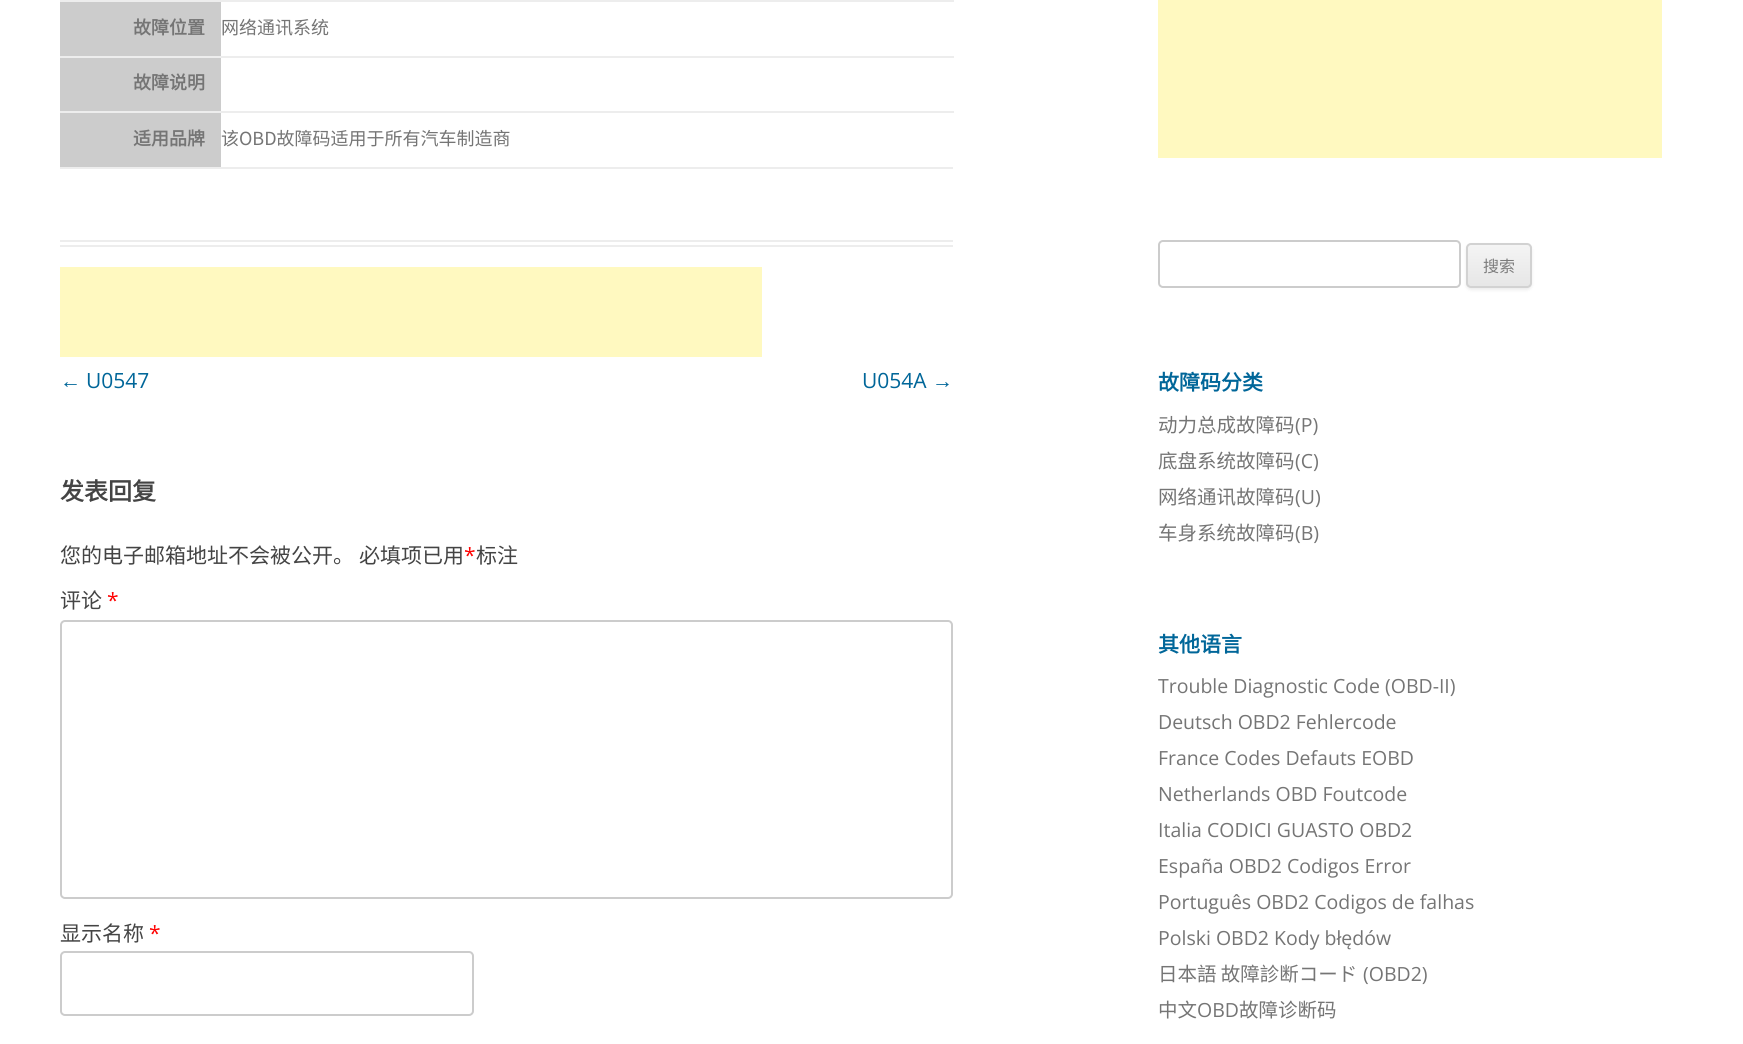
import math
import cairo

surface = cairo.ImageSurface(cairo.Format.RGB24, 1743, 1044)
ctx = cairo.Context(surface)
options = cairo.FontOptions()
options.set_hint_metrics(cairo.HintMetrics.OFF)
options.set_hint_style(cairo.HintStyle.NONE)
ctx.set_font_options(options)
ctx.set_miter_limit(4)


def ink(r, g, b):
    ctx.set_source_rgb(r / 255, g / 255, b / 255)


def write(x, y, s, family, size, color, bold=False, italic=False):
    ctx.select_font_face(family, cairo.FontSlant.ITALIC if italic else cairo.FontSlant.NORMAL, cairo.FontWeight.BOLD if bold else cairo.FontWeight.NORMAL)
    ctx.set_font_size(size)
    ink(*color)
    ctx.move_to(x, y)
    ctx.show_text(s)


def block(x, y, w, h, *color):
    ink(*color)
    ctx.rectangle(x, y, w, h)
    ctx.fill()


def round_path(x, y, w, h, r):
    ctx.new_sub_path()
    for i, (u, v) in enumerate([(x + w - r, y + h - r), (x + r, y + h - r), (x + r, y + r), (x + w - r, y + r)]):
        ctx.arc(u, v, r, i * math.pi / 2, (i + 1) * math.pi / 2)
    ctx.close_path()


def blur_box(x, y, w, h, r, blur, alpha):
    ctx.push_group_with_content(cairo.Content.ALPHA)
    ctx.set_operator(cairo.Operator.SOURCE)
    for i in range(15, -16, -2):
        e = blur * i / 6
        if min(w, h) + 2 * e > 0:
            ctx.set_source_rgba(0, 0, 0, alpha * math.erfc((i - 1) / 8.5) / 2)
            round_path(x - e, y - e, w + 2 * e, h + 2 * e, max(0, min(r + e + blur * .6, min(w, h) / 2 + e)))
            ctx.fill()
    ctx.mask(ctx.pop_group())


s1 = dict(family="Noto Sans CJK SC", size=18, color=(117, 117, 117), bold=True)
s2 = dict(family="Noto Sans CJK SC", size=18, color=(117, 117, 117))
s3 = dict(family="Liberation Sans", size=21, color=(0, 102, 153))
s4 = dict(family="Open Sans", size=21, color=(0, 102, 153))
s5 = dict(family="Noto Sans CJK SC", size=24, color=(68, 68, 68), bold=True)
s6 = dict(family="Noto Sans CJK SC", size=21, color=(68, 68, 68))
s7 = dict(family="Open Sans", size=21, color=(255, 0, 0))
s8 = dict(family="Noto Sans CJK SC", size=16, color=(124, 124, 124))
s9 = dict(family="Noto Sans CJK SC", size=21, color=(0, 102, 153), bold=True)
s10 = dict(family="Noto Sans CJK SC", size=19.5, color=(117, 117, 117))
s11 = dict(family="Open Sans", size=19.5, color=(117, 117, 117))

ink(255, 255, 255)
ctx.paint()
block(60, 240, 893, 2, 237, 237, 237)
block(60, 245, 893, 2, 237, 237, 237)
block(60, 167, 893, 2, 237, 237, 237)
block(60, 2, 161, 54, 204, 204, 204)
write(133, 34, "故障位置", **s1)
block(60, 0, 894, 2, 237, 237, 237)
write(221, 34, "网络通讯系统", **s2)
block(60, 56, 894, 2, 237, 237, 237)
block(60, 58, 161, 53, 204, 204, 204)
write(133, 89, "故障说明", **s1)
block(60, 113, 161, 54, 204, 204, 204)
write(133, 145, "适用品牌", **s1)
block(60, 111, 894, 2, 237, 237, 237)
write(221, 145, "该OBD故障码适用于所有汽车制造商", **s2)
block(60, 267, 702, 90, 255, 249, 192)
write(60, 388, "←", **s3)
write(86, 388, "U0547", **s4)
write(862, 388, "U054A", **s4)
write(932, 388, "→", **s3)
write(60, 500, "发表回复", **s5)
write(60, 563, "您的电子邮箱地址不会被公开。", **s6)
write(359, 563, "必填项已用", **s6)
write(464, 563, "*", **s7)
write(476, 563, "标注", **s6)
write(60, 608, "评论", **s6)
write(107, 608, "*", **s7)
round_path(61, 621, 891, 277, 4)
ink(204, 204, 204)
ctx.stroke()
write(60, 941, "显示名称", **s6)
write(149, 941, "*", **s7)
round_path(61, 952, 412, 63, 4)
ink(204, 204, 204)
ctx.stroke()
block(1158, 0, 504, 158, 255, 249, 192)
round_path(1159, 241, 301, 46, 4)
ink(204, 204, 204)
ctx.stroke()
ink(64, 64, 64)
blur_box(1466, 245, 66, 45, 5, 1.5, 0.1)
ctx.save()
round_path(1466, 243, 66, 45, 5)
ctx.clip()
gradient = cairo.LinearGradient(1499, 245, 1499, 287)
gradient.add_color_stop_rgba(0, 0.957, 0.957, 0.957, 1)
gradient.add_color_stop_rgba(1, 0.902, 0.902, 0.902, 1)
ctx.set_source(gradient)
ctx.rectangle(1466, 245, 66, 42)
ctx.fill()
ctx.restore()
round_path(1467, 244, 64, 43, 4)
ink(210, 210, 210)
ctx.stroke()
write(1483, 272, "搜索", **s8)
write(1158, 390, "故障码分类", **s9)
write(1158, 432, "动力总成故障码", **s10)
write(1295, 432, "(P)", **s11)
write(1158, 468, "底盘系统故障码", **s10)
write(1295, 468, "(C)", **s11)
write(1158, 504, "网络通讯故障码", **s10)
write(1295, 504, "(U)", **s11)
write(1158, 540, "车身系统故障码", **s10)
write(1295, 540, "(B)", **s11)
write(1158, 652, "其他语言", **s9)
write(1158, 693, "Trouble Diagnostic Code (OBD-II)", **s11)
write(1158, 729, "Deutsch OBD2 Fehlercode", **s11)
write(1158, 765, "France Codes Defauts EOBD", **s11)
write(1158, 801, "Netherlands OBD Foutcode", **s11)
write(1158, 837, "Italia CODICI GUASTO OBD2", **s11)
write(1158, 873, "España OBD2 Codigos Error", **s11)
write(1158, 909, "Português OBD2 Codigos de falhas", **s11)
write(1158, 945, "Polski OBD2 Kody błędów", **s11)
write(1158, 981, "日本語 故障診断コード", **s10)
write(1363, 981, "(OBD2)", **s11)
write(1158, 1017, "中文", **s10)
write(1197, 1017, "OBD", **s11)
write(1239, 1017, "故障诊断码", **s10)
surface.write_to_png("screenshot.png")
